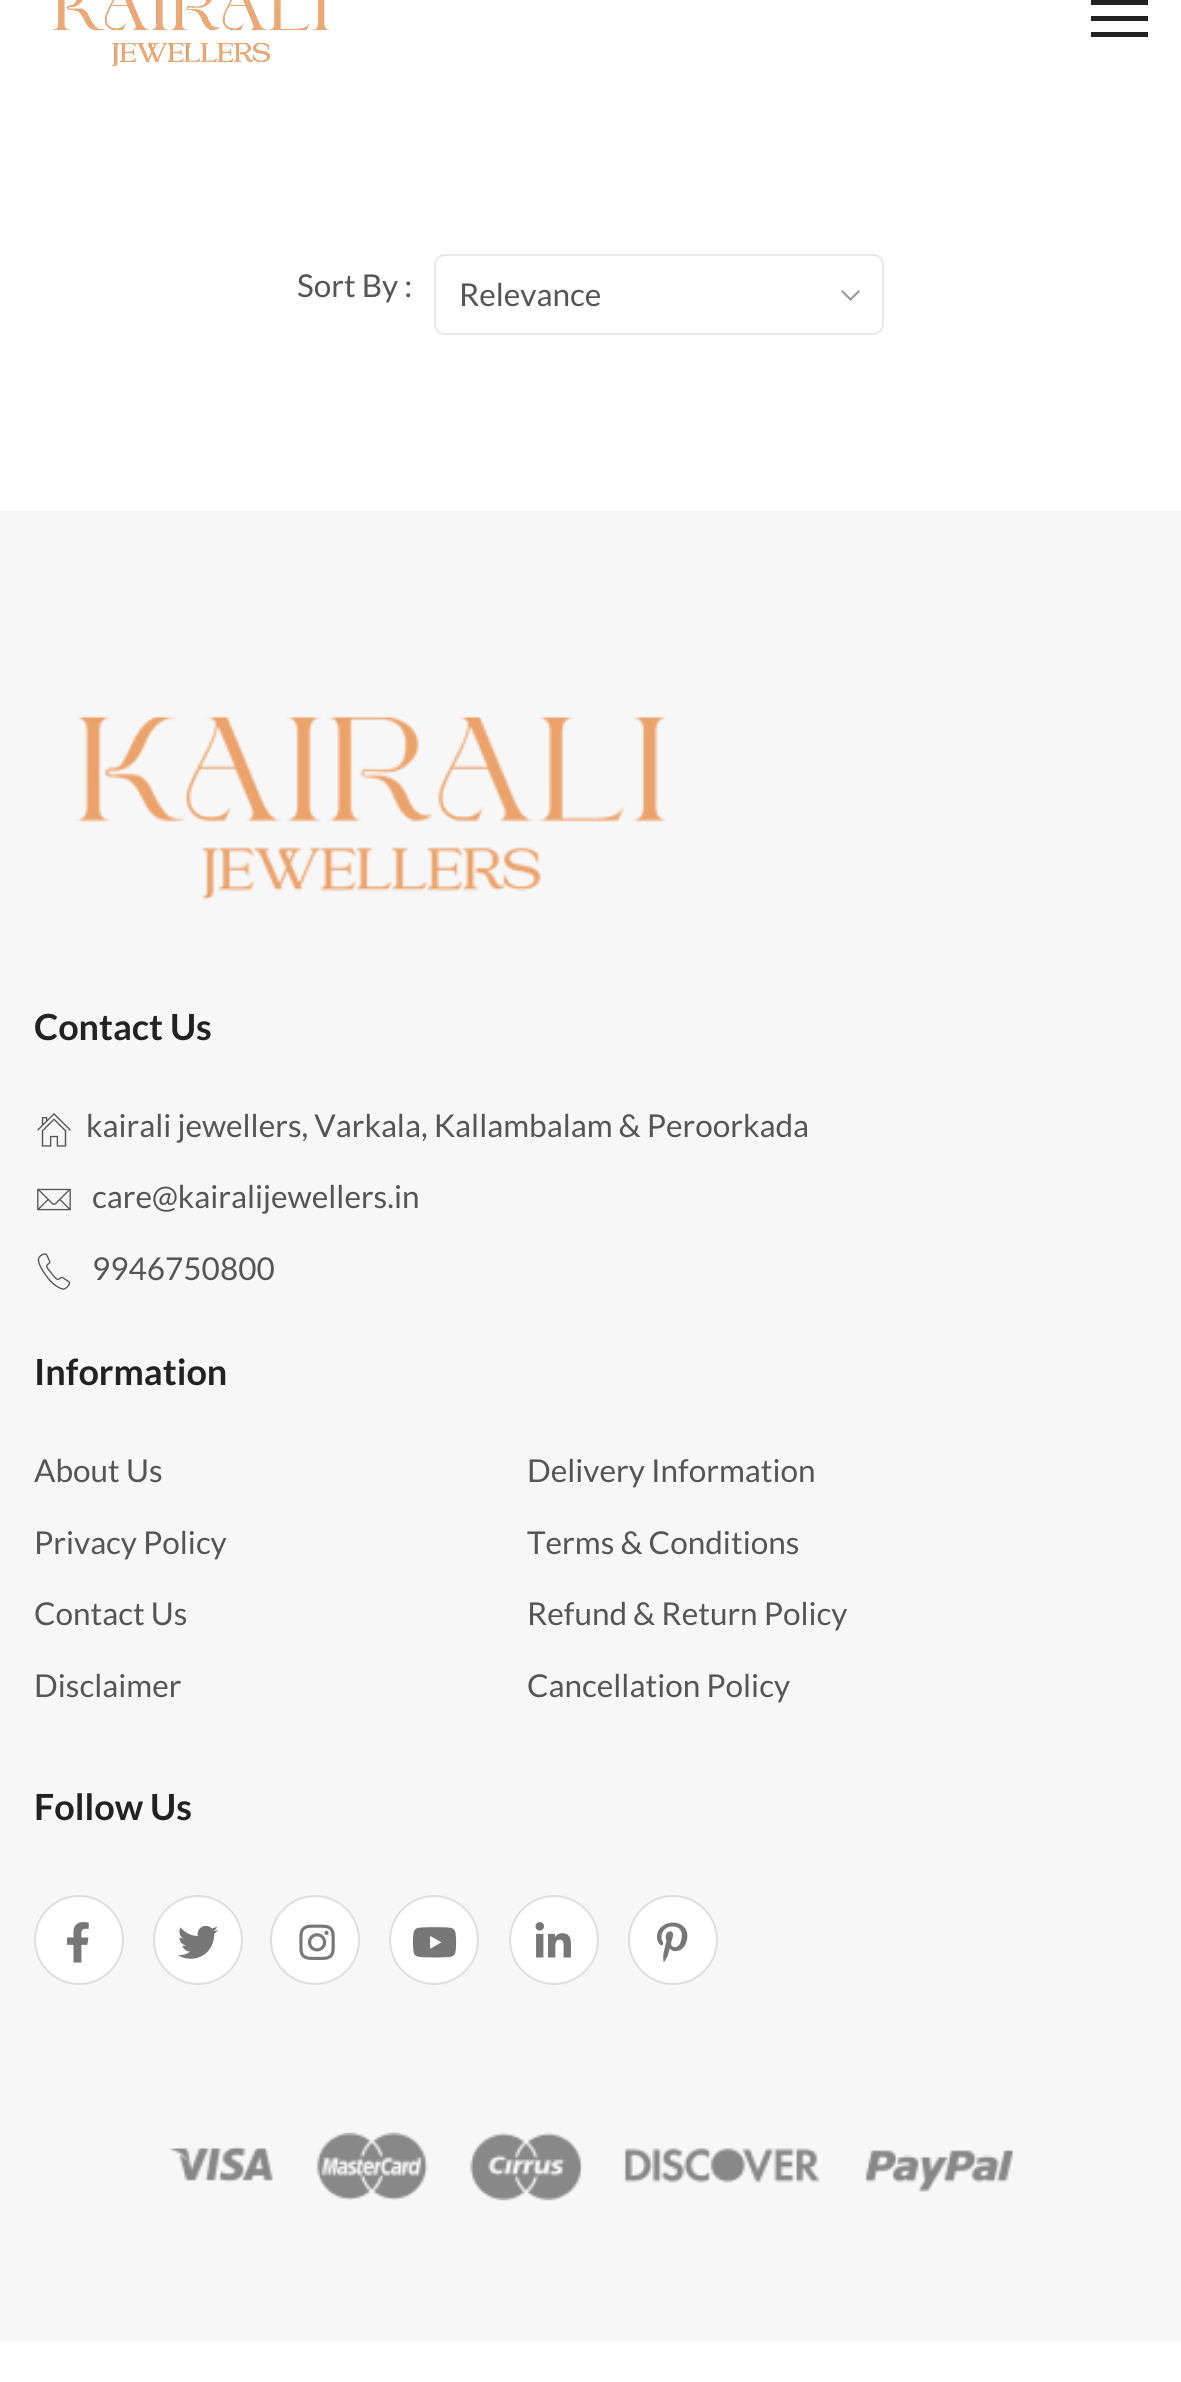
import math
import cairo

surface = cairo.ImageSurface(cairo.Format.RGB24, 1181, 2382)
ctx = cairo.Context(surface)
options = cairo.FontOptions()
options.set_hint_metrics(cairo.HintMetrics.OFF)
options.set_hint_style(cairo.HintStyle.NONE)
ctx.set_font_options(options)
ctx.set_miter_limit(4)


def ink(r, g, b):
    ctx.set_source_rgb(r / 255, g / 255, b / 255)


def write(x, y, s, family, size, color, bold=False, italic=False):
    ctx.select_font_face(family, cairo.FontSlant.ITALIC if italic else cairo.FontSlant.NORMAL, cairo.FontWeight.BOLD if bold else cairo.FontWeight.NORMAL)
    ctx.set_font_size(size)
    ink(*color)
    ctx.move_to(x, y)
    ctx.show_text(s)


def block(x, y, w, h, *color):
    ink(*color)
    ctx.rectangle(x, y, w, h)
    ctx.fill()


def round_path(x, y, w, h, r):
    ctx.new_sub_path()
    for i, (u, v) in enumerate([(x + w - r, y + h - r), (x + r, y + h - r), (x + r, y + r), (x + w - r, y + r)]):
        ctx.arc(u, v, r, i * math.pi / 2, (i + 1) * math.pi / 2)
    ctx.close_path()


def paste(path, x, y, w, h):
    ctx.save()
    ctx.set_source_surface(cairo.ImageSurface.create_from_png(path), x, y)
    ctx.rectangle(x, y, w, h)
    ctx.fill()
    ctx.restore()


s1 = dict(family="Lato", size=31.5, color=(85, 85, 85))
s2 = dict(family="Lato", size=36, color=(34, 34, 34), bold=True)

ink(255, 255, 255)
ctx.paint()
paste("pic1.png", 53, 0, 277, 67)
block(1091, 0, 57, 5, 34, 34, 34)
block(1091, 16, 57, 5, 34, 34, 34)
block(1091, 32, 57, 5, 34, 34, 34)
write(297, 297, "Sort By :", **s1)
round_path(435, 255, 448, 79, 10)
ink(232, 232, 232)
ctx.stroke()
write(459, 306, "Relevance", **s1)
ink(153, 153, 153)
ctx.new_path()
ctx.move_to(858.5, 290)
ctx.line_to(860, 291.5)
ctx.line_to(850.5, 301)
ctx.line_to(849, 299.5)
ctx.close_path()
ctx.fill()
ctx.new_path()
ctx.move_to(842.5, 290)
ctx.line_to(852, 299.5)
ctx.line_to(850.5, 301)
ctx.line_to(841, 291.5)
ctx.close_path()
ctx.fill()
block(0, 511, 1181, 1831, 247, 247, 247)
paste("pic2.png", 76, 715, 591, 186)
write(34, 1040, "Contact Us", **s2)
paste("pic3.png", 37, 1113, 34, 34)
write(86, 1137, "kairali jewellers, Varkala, Kallambalam & Peroorkada", **s1)
paste("pic4.png", 37, 1188, 34, 23)
write(92, 1208, "care@kairalijewellers.in", **s1)
paste("pic5.png", 37, 1253, 34, 37)
write(92, 1280, "9946750800", **s1)
write(34, 1385, "Information", **s2)
write(34, 1482, "About Us", **s1)
write(527, 1482, "Delivery Information", **s1)
write(34, 1554, "Privacy Policy", **s1)
write(527, 1554, "Terms & Conditions", **s1)
write(34, 1625, "Contact Us", **s1)
write(527, 1625, "Refund & Return Policy", **s1)
write(34, 1697, "Disclaimer", **s1)
write(527, 1697, "Cancellation Policy", **s1)
write(34, 1820, "Follow Us", **s2)
ink(255, 255, 255)
ctx.new_path()
ctx.arc(79, 1940, 44, 0, 2 * math.pi)
ctx.fill_preserve()
ink(222, 222, 222)
ctx.stroke()
paste("pic6.png", 67, 1922, 22, 41)
ink(255, 255, 255)
ctx.arc(198, 1940, 44, 0, 2 * math.pi)
ctx.fill_preserve()
ink(222, 222, 222)
ctx.stroke()
paste("pic7.png", 178, 1925, 40, 34)
ink(255, 255, 255)
ctx.arc(315, 1940, 44, 0, 2 * math.pi)
ctx.fill_preserve()
ink(222, 222, 222)
ctx.stroke()
paste("pic8.png", 299, 1924, 36, 36)
ink(255, 255, 255)
ctx.arc(434, 1940, 44, 0, 2 * math.pi)
ctx.fill_preserve()
ink(222, 222, 222)
ctx.stroke()
paste("pic9.png", 412, 1927, 45, 31)
ink(255, 255, 255)
ctx.arc(554, 1940, 44, 0, 2 * math.pi)
ctx.fill_preserve()
ink(222, 222, 222)
ctx.stroke()
paste("pic10.png", 535, 1922, 36, 36)
ink(255, 255, 255)
ctx.arc(673, 1940, 44, 0, 2 * math.pi)
ctx.fill_preserve()
ink(222, 222, 222)
ctx.stroke()
paste("pic11.png", 657, 1922, 31, 40)
paste("pic12.png", 169, 2132, 844, 69)
surface.write_to_png("screenshot.png")
